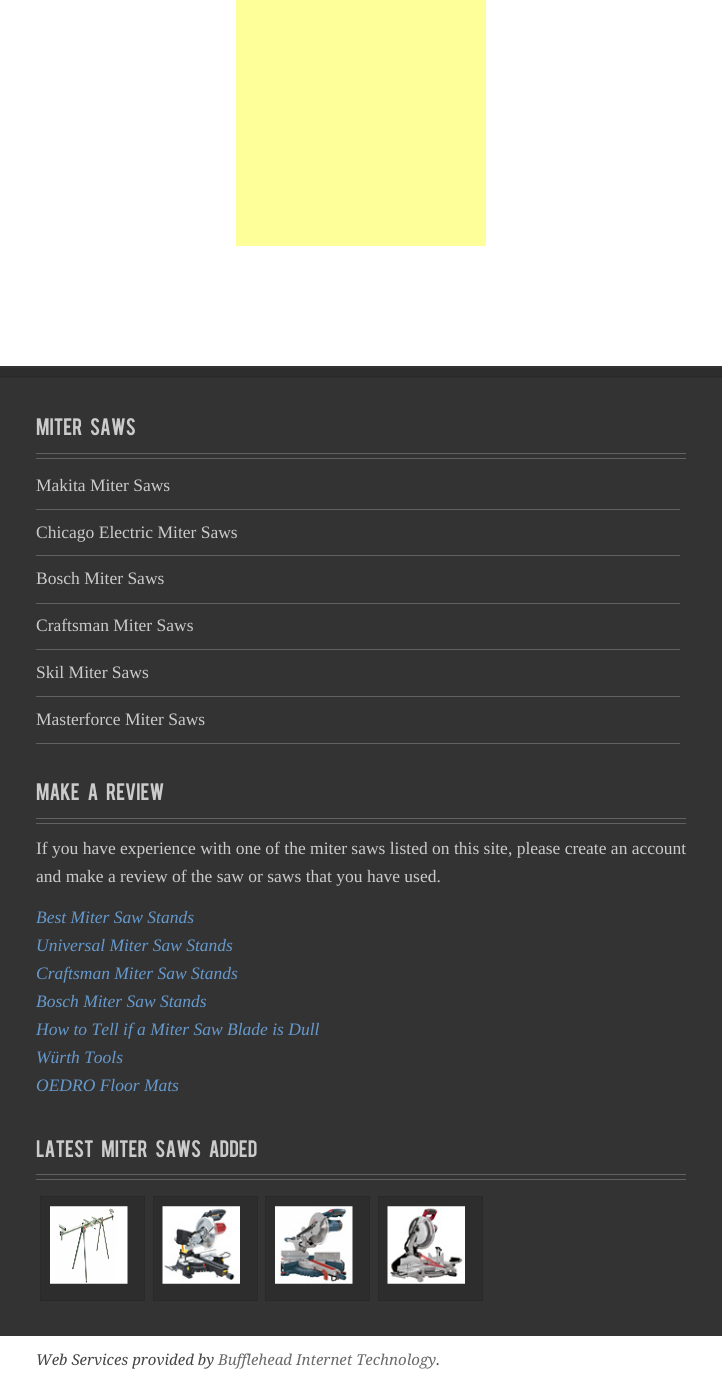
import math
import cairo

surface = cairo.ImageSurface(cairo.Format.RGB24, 722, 1381)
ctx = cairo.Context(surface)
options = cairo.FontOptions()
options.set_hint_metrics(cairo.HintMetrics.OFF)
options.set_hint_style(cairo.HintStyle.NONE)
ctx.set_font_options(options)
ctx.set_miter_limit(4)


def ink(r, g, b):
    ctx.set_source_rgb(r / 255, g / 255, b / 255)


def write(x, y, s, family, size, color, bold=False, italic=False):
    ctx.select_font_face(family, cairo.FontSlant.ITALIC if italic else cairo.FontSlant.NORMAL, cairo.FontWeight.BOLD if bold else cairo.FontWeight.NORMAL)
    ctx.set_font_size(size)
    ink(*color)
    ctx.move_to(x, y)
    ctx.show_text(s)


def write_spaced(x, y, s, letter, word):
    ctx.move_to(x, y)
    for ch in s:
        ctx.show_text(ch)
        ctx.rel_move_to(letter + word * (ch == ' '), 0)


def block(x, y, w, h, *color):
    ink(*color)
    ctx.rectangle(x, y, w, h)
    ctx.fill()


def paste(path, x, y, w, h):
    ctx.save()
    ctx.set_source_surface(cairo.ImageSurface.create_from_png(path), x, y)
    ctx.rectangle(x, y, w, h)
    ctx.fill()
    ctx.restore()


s1 = dict(family="Liberation Serif", size=17.5, color=(203, 203, 203))
s2 = dict(family="Liberation Serif", size=17.5, color=(102, 153, 204), italic=True)
s3 = dict(family="Droid Serif", size=15, color=(69, 69, 69), italic=True)
s4 = dict(family="Droid Serif", size=15, color=(106, 106, 106), italic=True)

ink(255, 255, 255)
ctx.paint()
block(236, 0, 250, 246, 255, 255, 153)
block(0, 366, 722, 970, 51, 51, 51)
block(0, 368, 722, 10, 45, 45, 45)
block(0, 376, 722, 1, 41, 41, 41)
ctx.select_font_face("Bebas")
ctx.set_font_size(18.75)
ink(203, 203, 203)
write_spaced(36, 435, "Miter Saws", 0, 6)
block(36, 453, 650, 1, 97, 97, 97)
block(36, 458, 650, 1, 97, 97, 97)
block(36, 509, 644, 1, 97, 97, 97)
write(36, 491, "Makita Miter Saws", **s1)
block(36, 555, 644, 1, 97, 97, 97)
write(36, 538, "Chicago Electric Miter Saws", **s1)
block(36, 603, 644, 1, 97, 97, 97)
write(36, 584, "Bosch Miter Saws", **s1)
block(36, 649, 644, 1, 97, 97, 97)
write(36, 631, "Craftsman Miter Saws", **s1)
block(36, 696, 644, 1, 97, 97, 97)
write(36, 678, "Skil Miter Saws", **s1)
block(36, 743, 644, 1, 97, 97, 97)
write(36, 725, "Masterforce Miter Saws", **s1)
ctx.select_font_face("Bebas")
ctx.set_font_size(18.75)
write_spaced(36, 800, "Make a Review", 0, 6)
block(36, 818, 650, 1, 97, 97, 97)
block(36, 823, 650, 1, 97, 97, 97)
write(36, 854, "If you have experience with one of the miter saws listed on this site, please create an account", **s1)
write(36, 882, "and make a review of the saw or saws that you have used.", **s1)
write(36, 923, "Best Miter Saw Stands", **s2)
write(36, 951, "Universal Miter Saw Stands", **s2)
write(36, 979, "Craftsman Miter Saw Stands", **s2)
write(36, 1007, "Bosch Miter Saw Stands", **s2)
write(36, 1035, "How to Tell if a Miter Saw Blade is Dull", **s2)
write(36, 1063, "Würth Tools", **s2)
write(36, 1091, "OEDRO Floor Mats", **s2)
ctx.select_font_face("Bebas")
ctx.set_font_size(18.75)
ink(203, 203, 203)
write_spaced(36, 1157, "Latest Miter Saws Added", 0, 6)
block(36, 1174, 650, 1, 97, 97, 97)
block(36, 1179, 650, 1, 97, 97, 97)
ink(45, 45, 45)
ctx.rectangle(40.5, 1196.5, 104, 104)
ctx.fill_preserve()
ink(41, 41, 41)
ctx.set_line_width(1)
ctx.stroke()
paste("pic1.png", 50, 1206, 78, 78)
ink(45, 45, 45)
ctx.rectangle(153.5, 1196.5, 104, 104)
ctx.fill_preserve()
ink(41, 41, 41)
ctx.stroke()
paste("pic2.png", 162, 1206, 78, 78)
ink(45, 45, 45)
ctx.rectangle(265.5, 1196.5, 104, 104)
ctx.fill_preserve()
ink(41, 41, 41)
ctx.stroke()
paste("pic3.png", 275, 1206, 78, 78)
ink(45, 45, 45)
ctx.rectangle(378.5, 1196.5, 104, 104)
ctx.fill_preserve()
ink(41, 41, 41)
ctx.stroke()
paste("pic4.png", 387, 1206, 78, 78)
write(36, 1365, "Web Services provided by", **s3)
write(218, 1365, "Bufflehead Internet Technology", **s4)
write(436, 1365, ".", **s3)
surface.write_to_png("screenshot.png")
